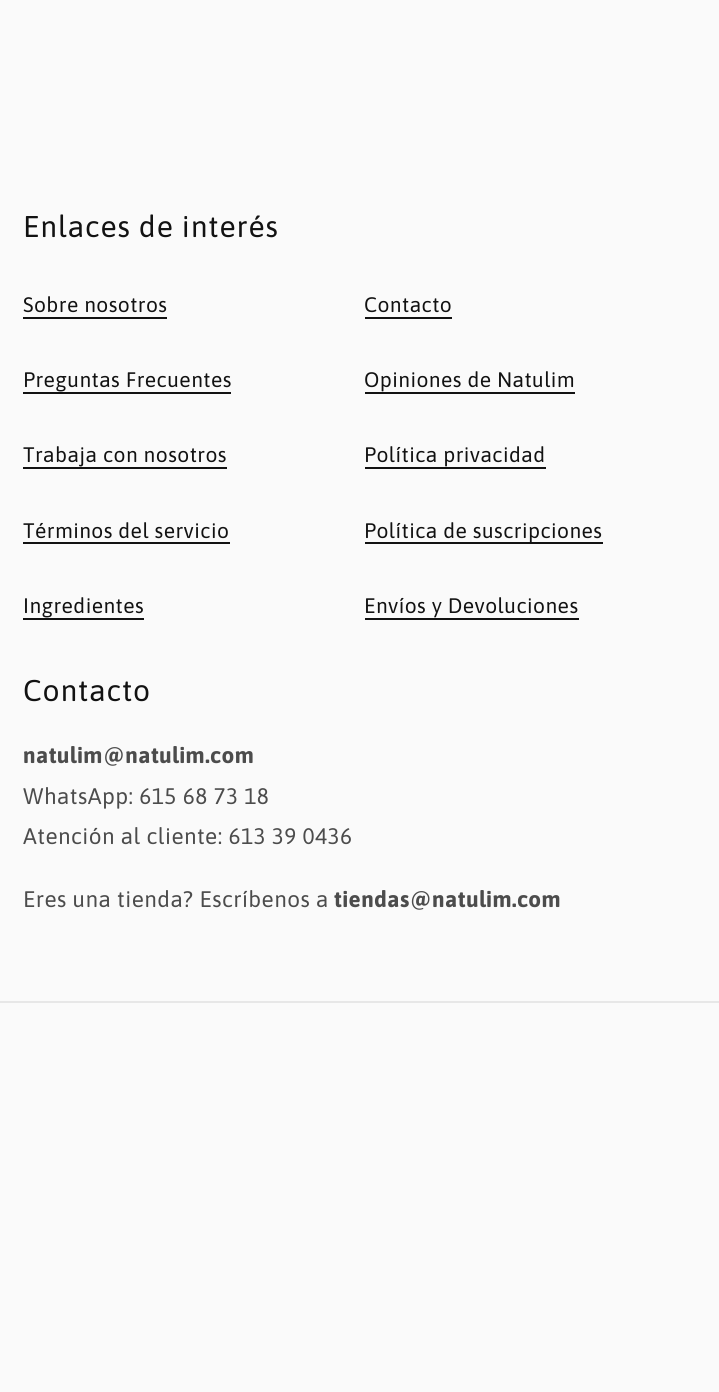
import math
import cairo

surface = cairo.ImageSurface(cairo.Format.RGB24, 719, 1392)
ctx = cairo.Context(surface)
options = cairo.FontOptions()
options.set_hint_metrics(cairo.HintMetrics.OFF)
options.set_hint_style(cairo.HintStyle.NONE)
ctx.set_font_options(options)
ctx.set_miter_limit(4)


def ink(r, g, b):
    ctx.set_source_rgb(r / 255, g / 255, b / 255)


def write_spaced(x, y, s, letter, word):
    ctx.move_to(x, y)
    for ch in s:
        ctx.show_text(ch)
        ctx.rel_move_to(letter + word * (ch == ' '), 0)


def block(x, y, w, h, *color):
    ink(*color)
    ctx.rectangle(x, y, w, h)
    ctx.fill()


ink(250, 250, 250)
ctx.paint()
ctx.select_font_face("Asap")
ctx.set_font_size(30)
ink(18, 18, 18)
write_spaced(23, 237, "Enlaces de interés", 0.9, 0)
ctx.set_font_size(21)
write_spaced(23, 312, "Sobre nosotros", 0.45, 0)
block(23, 317, 144, 2, 18, 18, 18)
write_spaced(364, 312, "Contacto", 0.45, 0)
block(365, 317, 87, 2, 18, 18, 18)
write_spaced(23, 387, "Preguntas Frecuentes", 0.45, 0)
block(23, 392, 208, 2, 18, 18, 18)
write_spaced(364, 387, "Opiniones de Natulim", 0.45, 0)
block(365, 392, 210, 2, 18, 18, 18)
write_spaced(23, 462, "Trabaja con nosotros", 0.45, 0)
block(23, 467, 204, 2, 18, 18, 18)
write_spaced(364, 462, "Política privacidad", 0.45, 0)
block(365, 467, 181, 2, 18, 18, 18)
write_spaced(23, 538, "Términos del servicio", 0.45, 0)
block(23, 542, 207, 2, 18, 18, 18)
block(365, 542, 238, 2, 18, 18, 18)
write_spaced(364, 538, "Política de suscripciones", 0.45, 0)
write_spaced(23, 613, "Ingredientes", 0.45, 0)
block(23, 618, 121, 2, 18, 18, 18)
write_spaced(364, 613, "Envíos y Devoluciones", 0.45, 0)
block(365, 618, 214, 2, 18, 18, 18)
ctx.set_font_size(30)
write_spaced(23, 701, "Contacto", 0.9, 0)
ctx.select_font_face("Asap", cairo.FontSlant.NORMAL, cairo.FontWeight.BOLD)
ctx.set_font_size(22.5)
ink(76, 76, 76)
write_spaced(23, 763, "natulim@natulim.com", 0.45, 0)
ctx.select_font_face("Asap")
write_spaced(23, 804, "WhatsApp: 615 68 73 18", 0.45, 0)
write_spaced(23, 844, "Atención al cliente: 613 39 0436", 0.45, 0)
write_spaced(23, 907, "Eres una tienda? Escríbenos a", 0.45, 0)
ctx.select_font_face("Asap", cairo.FontSlant.NORMAL, cairo.FontWeight.BOLD)
write_spaced(334, 907, "tiendas@natulim.com", 0.45, 0)
block(0, 1001, 719, 2, 231, 231, 231)
surface.write_to_png("screenshot.png")
